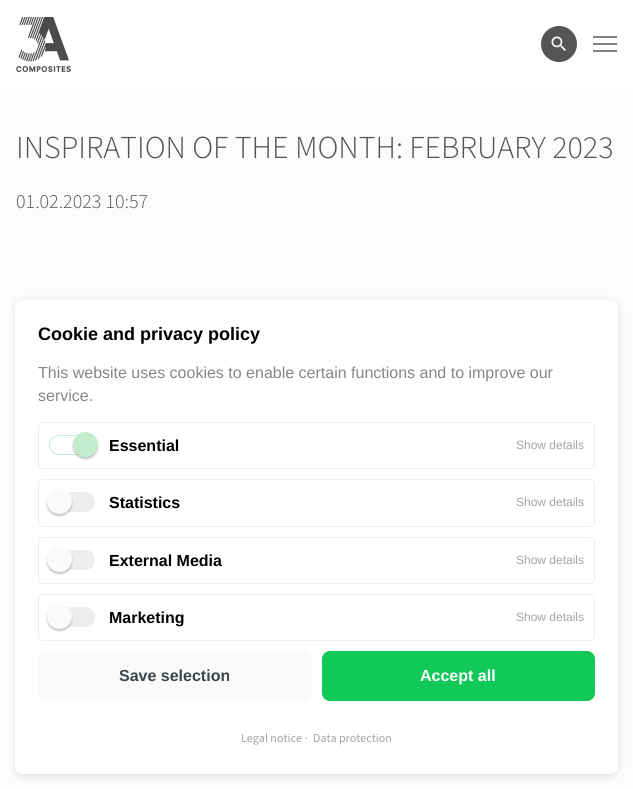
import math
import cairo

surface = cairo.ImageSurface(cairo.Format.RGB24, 633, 789)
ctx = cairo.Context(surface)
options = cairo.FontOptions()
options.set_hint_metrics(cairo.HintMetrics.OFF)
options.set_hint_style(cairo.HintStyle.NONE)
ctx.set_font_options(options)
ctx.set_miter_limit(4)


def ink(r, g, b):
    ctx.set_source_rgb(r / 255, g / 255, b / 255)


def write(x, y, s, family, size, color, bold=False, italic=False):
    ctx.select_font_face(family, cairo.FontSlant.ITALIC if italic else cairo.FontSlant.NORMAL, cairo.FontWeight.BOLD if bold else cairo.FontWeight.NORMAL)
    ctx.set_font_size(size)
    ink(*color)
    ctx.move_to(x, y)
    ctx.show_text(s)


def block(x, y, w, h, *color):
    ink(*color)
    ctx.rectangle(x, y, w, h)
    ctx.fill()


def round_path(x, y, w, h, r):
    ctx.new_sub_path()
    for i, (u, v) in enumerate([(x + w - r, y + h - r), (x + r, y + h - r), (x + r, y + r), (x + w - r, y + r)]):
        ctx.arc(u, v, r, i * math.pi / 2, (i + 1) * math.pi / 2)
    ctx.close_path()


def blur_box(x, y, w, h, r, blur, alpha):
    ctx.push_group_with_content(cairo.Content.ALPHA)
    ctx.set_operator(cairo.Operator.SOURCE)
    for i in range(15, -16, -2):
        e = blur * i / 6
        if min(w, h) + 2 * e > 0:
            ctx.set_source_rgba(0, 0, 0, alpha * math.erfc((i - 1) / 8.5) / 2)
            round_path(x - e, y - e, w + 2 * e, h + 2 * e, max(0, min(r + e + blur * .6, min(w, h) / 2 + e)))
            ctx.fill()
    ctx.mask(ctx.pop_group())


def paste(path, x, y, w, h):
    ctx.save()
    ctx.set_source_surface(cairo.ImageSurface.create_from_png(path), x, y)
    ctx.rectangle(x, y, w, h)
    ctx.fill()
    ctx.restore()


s1 = dict(family="Source Sans 3 Light", size=32, color=(85, 85, 85))
s2 = dict(family="Source Sans 3 Light", size=20, color=(85, 85, 85))
s3 = dict(family="Liberation Sans", size=18, color=(0, 0, 0), bold=True)
s4 = dict(family="Liberation Sans", size=16, color=(134, 134, 134))
s5 = dict(family="Liberation Sans", size=16, color=(0, 0, 0), bold=True)
s6 = dict(family="Liberation Sans", size=12, color=(162, 162, 162))
s7 = dict(family="Liberation Sans", size=16, color=(61, 69, 72), bold=True)
s8 = dict(family="Liberation Sans", size=16, color=(255, 255, 255), bold=True)
s9 = dict(family="Source Sans 3", size=12, color=(162, 162, 162))

ink(252, 252, 252)
ctx.paint()
block(0, 0, 633, 88, 255, 255, 255)
paste("pic1.png", 16, 17, 55, 55)
ink(85, 85, 85)
ctx.arc(559, 44, 18, 0, 2 * math.pi)
ctx.fill()
paste("pic2.png", 551, 36, 15, 15)
block(593, 36, 24, 2, 128, 128, 128)
block(593, 43, 24, 2, 128, 128, 128)
block(593, 50, 24, 2, 128, 128, 128)
write(16, 158, "INSPIRATION OF THE MONTH: FEBRUARY 2023", **s1)
write(16, 208, "01.02.2023 10:57", **s2)
ink(99, 99, 99)
blur_box(15, 302, 603, 474, 8, 4, 0.2)
ink(255, 255, 255)
round_path(15, 300, 603, 474, 8)
ctx.fill()
write(38, 340, "Cookie and privacy policy", **s3)
write(38, 378, "This website uses cookies to enable certain functions and to improve our", **s4)
write(38, 401, "service.", **s4)
round_path(38.5, 422.5, 556, 46, 4.5)
ink(237, 237, 237)
ctx.set_line_width(1)
ctx.stroke()
round_path(49.5, 435.5, 45, 19, 9.5)
ink(194, 237, 206)
ctx.stroke()
ink(0, 0, 0)
blur_box(73, 434, 25, 25, 12.5, 1, 0.24)
ink(194, 237, 206)
ctx.arc(85.5, 444.5, 12.5, 0, 2 * math.pi)
ctx.fill()
write(109, 451, "Essential", **s5)
write(516, 449, "Show details", **s6)
round_path(38.5, 479.5, 556, 47, 4.5)
ink(237, 237, 237)
ctx.stroke()
round_path(49, 492, 46, 20, 10)
ctx.fill()
ink(0, 0, 0)
blur_box(47, 491, 25, 25, 12.5, 1, 0.24)
ink(250, 250, 250)
ctx.arc(59.5, 501.5, 12.5, 0, 2 * math.pi)
ctx.fill()
write(109, 508, "Statistics", **s5)
write(516, 506, "Show details", **s6)
round_path(38.5, 537.5, 556, 46, 4.5)
ink(237, 237, 237)
ctx.stroke()
round_path(49, 550, 46, 20, 10)
ctx.fill()
ink(0, 0, 0)
blur_box(47, 549, 25, 25, 12.5, 1, 0.24)
ink(250, 250, 250)
ctx.arc(59.5, 559.5, 12.5, 0, 2 * math.pi)
ctx.fill()
write(109, 566, "External Media", **s5)
write(516, 564, "Show details", **s6)
round_path(38.5, 594.5, 556, 46, 4.5)
ink(237, 237, 237)
ctx.stroke()
round_path(49, 607, 46, 20, 10)
ctx.fill()
ink(0, 0, 0)
blur_box(47, 606, 25, 25, 12.5, 1, 0.24)
ink(250, 250, 250)
ctx.arc(59.5, 616.5, 12.5, 0, 2 * math.pi)
ctx.fill()
write(109, 623, "Marketing", **s5)
write(516, 621, "Show details", **s6)
ink(250, 250, 250)
round_path(38, 651, 274, 50, 8)
ctx.fill()
write(119, 681, "Save selection", **s7)
ink(17, 201, 88)
round_path(322.5, 651.5, 272, 49, 7.5)
ctx.fill_preserve()
ctx.stroke()
write(420, 681, "Accept all", **s8)
write(241, 742, "Legal notice", **s9)
write(305, 742, "·", **s9)
write(313, 742, "Data protection", **s9)
surface.write_to_png("screenshot.png")
